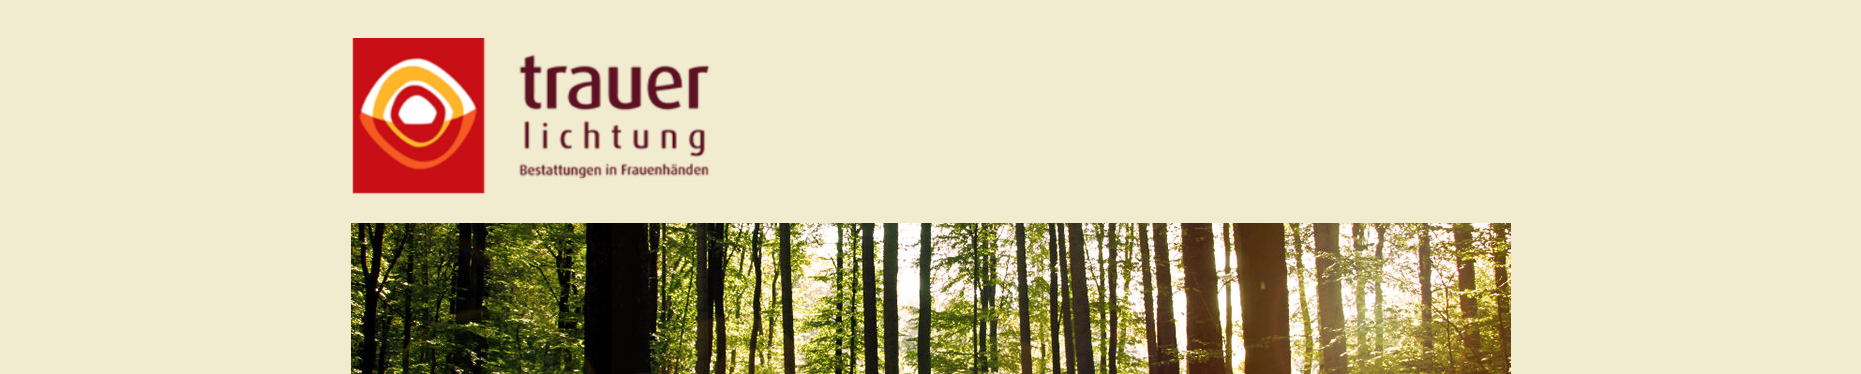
import math
import cairo

surface = cairo.ImageSurface(cairo.Format.RGB24, 1861, 374)
ctx = cairo.Context(surface)
options = cairo.FontOptions()
options.set_hint_metrics(cairo.HintMetrics.OFF)
options.set_hint_style(cairo.HintStyle.NONE)
ctx.set_font_options(options)
ctx.set_miter_limit(4)


def ink(r, g, b):
    ctx.set_source_rgb(r / 255, g / 255, b / 255)


def paste(path, x, y, w, h):
    ctx.save()
    ctx.set_source_surface(cairo.ImageSurface.create_from_png(path), x, y)
    ctx.rectangle(x, y, w, h)
    ctx.fill()
    ctx.restore()


ink(241, 236, 207)
ctx.paint()
paste("pic1.png", 352, 38, 358, 156)
paste("pic2.png", 351, 223, 1160, 151)
surface.write_to_png("screenshot.png")
